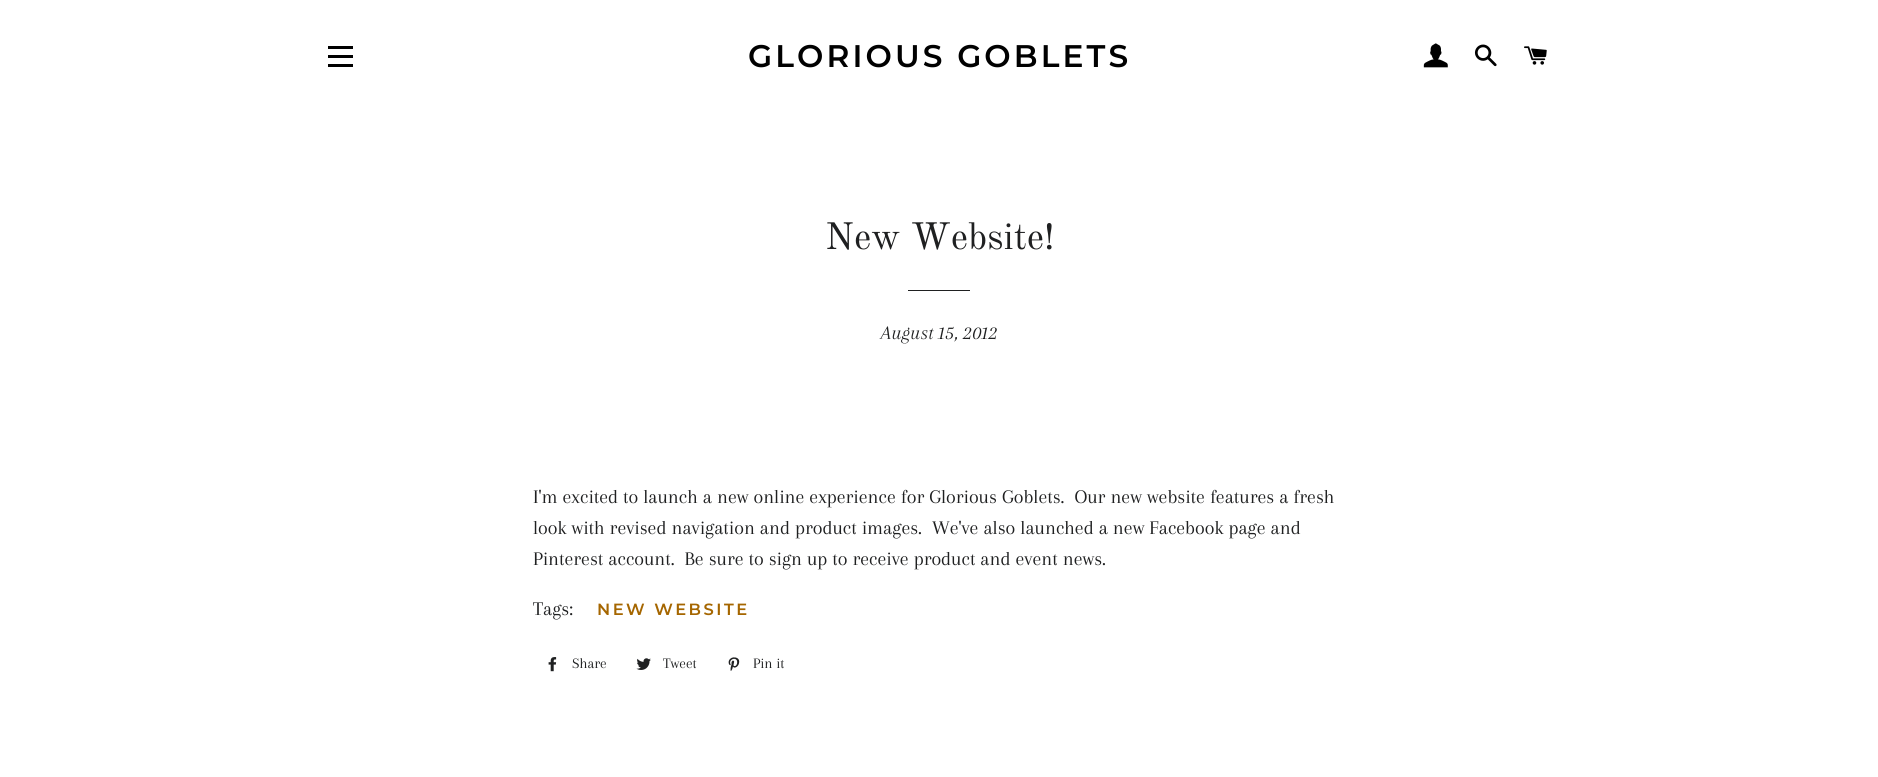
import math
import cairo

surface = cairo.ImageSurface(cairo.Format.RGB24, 1878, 777)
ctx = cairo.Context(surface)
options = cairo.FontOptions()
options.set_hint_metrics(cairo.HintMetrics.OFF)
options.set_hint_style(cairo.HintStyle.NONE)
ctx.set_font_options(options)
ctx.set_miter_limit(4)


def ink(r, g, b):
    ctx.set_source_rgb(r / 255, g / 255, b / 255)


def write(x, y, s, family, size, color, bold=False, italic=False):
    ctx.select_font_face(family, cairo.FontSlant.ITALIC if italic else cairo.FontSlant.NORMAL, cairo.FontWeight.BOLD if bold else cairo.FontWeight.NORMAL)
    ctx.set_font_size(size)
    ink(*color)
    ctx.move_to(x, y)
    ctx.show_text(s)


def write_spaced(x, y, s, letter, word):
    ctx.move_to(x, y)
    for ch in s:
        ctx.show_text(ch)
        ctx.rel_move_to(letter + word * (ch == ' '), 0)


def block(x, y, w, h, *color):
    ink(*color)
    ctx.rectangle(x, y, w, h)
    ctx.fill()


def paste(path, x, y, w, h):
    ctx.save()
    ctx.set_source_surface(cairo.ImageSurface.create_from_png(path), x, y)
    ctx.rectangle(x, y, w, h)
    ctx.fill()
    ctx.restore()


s1 = dict(family="Old Standard TT", size=37.5, color=(31, 32, 33))
s2 = dict(family="Arapey", size=20, color=(31, 32, 33), italic=True)
s3 = dict(family="Arapey", size=20, color=(31, 32, 33))
s4 = dict(family="Arapey", size=15, color=(31, 32, 33))

ink(255, 255, 255)
ctx.paint()
block(328, 46, 25, 3, 0, 0, 0)
block(328, 55, 25, 3, 0, 0, 0)
block(328, 64, 25, 3, 0, 0, 0)
ctx.select_font_face("Montserrat SemiBold")
ctx.set_font_size(31.25)
write_spaced(748, 67, "GLORIOUS GOBLETS", 3.1, 0)
paste("pic1.png", 1423, 43, 25, 25)
paste("pic2.png", 1474, 44, 23, 23)
paste("pic3.png", 1524, 46, 23, 19)
write(825, 249, "New Website!", **s1)
block(908, 290, 62, 1, 31, 32, 33)
write(881, 339, "August 15, 2012", **s2)
write(533, 503, "I'm excited to launch a new online experience for Glorious Goblets.  Our new website features a fresh", **s3)
write(533, 534, "look with revised navigation and product images.  We've also launched a new Facebook page and", **s3)
write(533, 565, "Pinterest account.  Be sure to sign up to receive product and event news.", **s3)
write(533, 615, "Tags:", **s3)
ctx.select_font_face("Montserrat SemiBold")
ctx.set_font_size(16.25)
ink(165, 102, 0)
write_spaced(597, 615, "NEW WEBSITE", 2.5, 0)
paste("pic4.png", 548, 657, 9, 15)
write(572, 668, "Share", **s4)
paste("pic5.png", 636, 658, 15, 12)
write(663, 668, "Tweet", **s4)
paste("pic6.png", 728, 657, 12, 14)
write(753, 668, "Pin it", **s4)
surface.write_to_png("screenshot.png")
